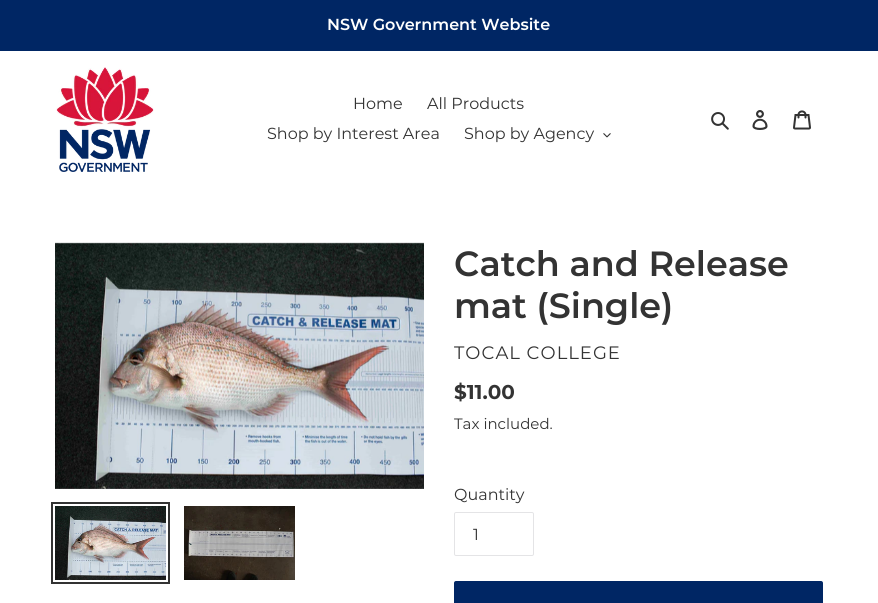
import math
import cairo

surface = cairo.ImageSurface(cairo.Format.RGB24, 878, 603)
ctx = cairo.Context(surface)
options = cairo.FontOptions()
options.set_hint_metrics(cairo.HintMetrics.OFF)
options.set_hint_style(cairo.HintStyle.NONE)
ctx.set_font_options(options)
ctx.set_miter_limit(4)


def ink(r, g, b):
    ctx.set_source_rgb(r / 255, g / 255, b / 255)


def write(x, y, s, family, size, color, bold=False, italic=False):
    ctx.select_font_face(family, cairo.FontSlant.ITALIC if italic else cairo.FontSlant.NORMAL, cairo.FontWeight.BOLD if bold else cairo.FontWeight.NORMAL)
    ctx.set_font_size(size)
    ink(*color)
    ctx.move_to(x, y)
    ctx.show_text(s)


def write_spaced(x, y, s, letter, word):
    ctx.move_to(x, y)
    for ch in s:
        ctx.show_text(ch)
        ctx.rel_move_to(letter + word * (ch == ' '), 0)


def block(x, y, w, h, *color):
    ink(*color)
    ctx.rectangle(x, y, w, h)
    ctx.fill()


def round_path(x, y, w, h, r):
    ctx.new_sub_path()
    for i, (u, v) in enumerate([(x + w - r, y + h - r), (x + r, y + h - r), (x + r, y + r), (x + w - r, y + r)]):
        ctx.arc(u, v, r, i * math.pi / 2, (i + 1) * math.pi / 2)
    ctx.close_path()


def paste(path, x, y, w, h):
    ctx.save()
    ctx.set_source_surface(cairo.ImageSurface.create_from_png(path), x, y)
    ctx.rectangle(x, y, w, h)
    ctx.fill()
    ctx.restore()


s1 = dict(family="Montserrat SemiBold", size=16, color=(255, 255, 255))
s2 = dict(family="Montserrat", size=16, color=(51, 51, 51))
s3 = dict(family="Montserrat SemiBold", size=35, color=(51, 51, 51))
s4 = dict(family="Montserrat", size=20, color=(51, 51, 51), bold=True)
s5 = dict(family="Montserrat", size=15, color=(51, 51, 51))

ink(255, 255, 255)
ctx.paint()
block(0, 0, 878, 51, 0, 38, 100)
write(327, 30, "NSW Government Website", **s1)
paste("pic1.png", 56, 67, 98, 105)
write(353, 109, "Home", **s2)
write(427, 109, "All Products", **s2)
write(267, 139, "Shop by Interest Area", **s2)
write(464, 139, "Shop by Agency", **s2)
paste("pic2.png", 603, 133, 8, 5)
paste("pic3.png", 711, 112, 18, 18)
paste("pic4.png", 752, 110, 16, 20)
paste("pic5.png", 793, 110, 18, 20)
paste("pic6.png", 55, 242, 369, 247)
ctx.rectangle(52, 503, 117, 80)
ctx.stroke()
paste("pic7.png", 55, 506, 111, 74)
paste("pic8.png", 184, 506, 111, 74)
write(454, 276, "Catch and Release", **s3)
write(454, 318, "mat (Single)", **s3)
ctx.select_font_face("Montserrat")
ctx.set_font_size(18)
write_spaced(454, 359, "TOCAL COLLEGE", 1, 0)
write(454, 399, "$11.00", **s4)
write(454, 429, "Tax included.", **s5)
write(454, 500, "Quantity", **s2)
round_path(454.5, 512.5, 79, 43, 1.5)
ink(228, 228, 230)
ctx.set_line_width(1)
ctx.stroke()
write(473, 540, "1", **s2)
ink(0, 38, 100)
round_path(454, 581, 369, 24, 2)
ctx.fill()
surface.write_to_png("screenshot.png")
